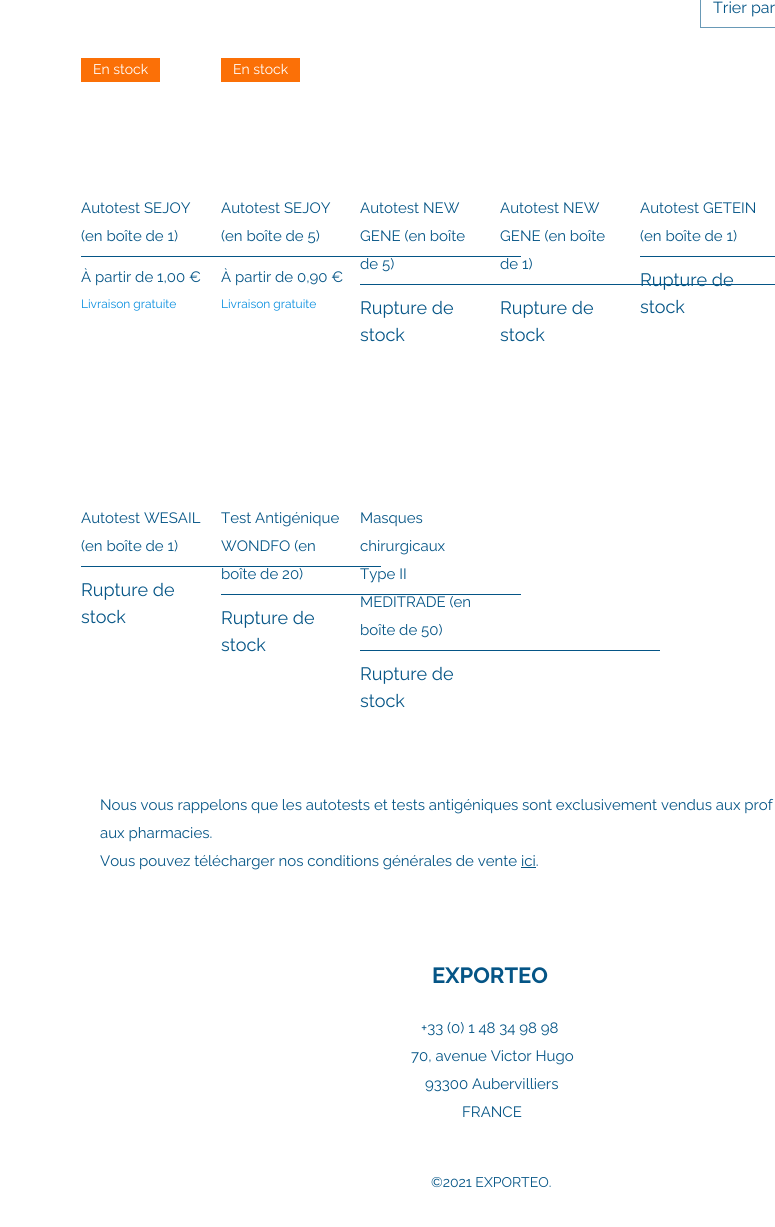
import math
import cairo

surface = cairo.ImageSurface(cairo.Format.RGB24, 775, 1227)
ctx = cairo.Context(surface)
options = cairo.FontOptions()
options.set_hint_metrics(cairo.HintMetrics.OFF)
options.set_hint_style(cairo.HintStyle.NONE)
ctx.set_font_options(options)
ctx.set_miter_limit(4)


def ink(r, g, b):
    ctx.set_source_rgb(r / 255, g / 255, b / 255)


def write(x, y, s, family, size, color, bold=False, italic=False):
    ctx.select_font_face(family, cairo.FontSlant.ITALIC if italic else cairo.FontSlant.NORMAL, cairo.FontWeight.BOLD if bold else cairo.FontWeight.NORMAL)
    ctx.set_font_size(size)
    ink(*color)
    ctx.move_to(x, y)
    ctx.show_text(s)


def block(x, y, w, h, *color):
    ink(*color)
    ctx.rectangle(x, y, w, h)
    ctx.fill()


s1 = dict(family="Raleway", size=16, color=(5, 85, 134))
s2 = dict(family="Raleway", size=14, color=(255, 255, 255))
s3 = dict(family="Raleway", size=15, color=(5, 85, 134))
s4 = dict(family="Raleway", size=12, color=(8, 142, 223))
s5 = dict(family="Raleway", size=18, color=(5, 85, 134))
s6 = dict(family="Raleway", size=22, color=(5, 85, 134), bold=True)
s7 = dict(family="Raleway", size=14, color=(5, 85, 134))

ink(255, 255, 255)
ctx.paint()
ctx.rectangle(700.5, -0.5, 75, 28)
ink(105, 153, 182)
ctx.set_line_width(1)
ctx.stroke()
write(713, 13, "Trier par", **s1)
block(81, 58, 79, 24, 251, 112, 7)
write(93, 74, "En stock", **s2)
write(81, 213, "Autotest SEJOY", **s3)
write(81, 241, "(en boîte de 1)", **s3)
block(81, 256, 440, 1, 5, 85, 134)
write(81, 282, "À partir de 1,00 €", **s3)
write(81, 308, "Livraison gratuite", **s4)
block(221, 58, 79, 24, 251, 112, 7)
write(233, 74, "En stock", **s2)
write(221, 213, "Autotest SEJOY", **s3)
write(221, 241, "(en boîte de 5)", **s3)
write(221, 282, "À partir de 0,90 €", **s3)
write(221, 308, "Livraison gratuite", **s4)
write(360, 213, "Autotest NEW", **s3)
write(360, 241, "GENE (en boîte", **s3)
write(360, 269, "de 5)", **s3)
block(360, 284, 415, 1, 5, 85, 134)
write(360, 314, "Rupture de", **s5)
write(360, 341, "stock", **s5)
write(500, 213, "Autotest NEW", **s3)
write(500, 241, "GENE (en boîte", **s3)
write(500, 269, "de 1)", **s3)
write(500, 314, "Rupture de", **s5)
write(500, 341, "stock", **s5)
write(640, 213, "Autotest GETEIN", **s3)
write(640, 241, "(en boîte de 1)", **s3)
block(640, 256, 135, 1, 5, 85, 134)
write(640, 286, "Rupture de", **s5)
write(640, 313, "stock", **s5)
write(81, 523, "Autotest WESAIL", **s3)
write(81, 551, "(en boîte de 1)", **s3)
block(81, 566, 300, 1, 5, 85, 134)
write(81, 596, "Rupture de", **s5)
write(81, 623, "stock", **s5)
write(221, 523, "Test Antigénique", **s3)
write(221, 551, "WONDFO (en", **s3)
write(221, 579, "boîte de 20)", **s3)
block(221, 594, 300, 1, 5, 85, 134)
write(221, 624, "Rupture de", **s5)
write(221, 651, "stock", **s5)
write(360, 523, "Masques", **s3)
write(360, 551, "chirurgicaux", **s3)
write(360, 579, "Type II", **s3)
write(360, 607, "MEDITRADE (en", **s3)
write(360, 635, "boîte de 50)", **s3)
block(360, 650, 300, 1, 5, 85, 134)
write(360, 680, "Rupture de", **s5)
write(360, 707, "stock", **s5)
write(100, 810, "Nous vous rappelons que les autotests et tests antigéniques sont exclusivement vendus aux prof", **s3)
write(100, 838, "aux pharmacies.", **s3)
write(100, 866, "Vous pouvez télécharger nos conditions générales de vente ici.", **s3)
block(521, 867, 15, 1, 5, 85, 134)
write(432, 983, "EXPORTEO", **s6)
write(421, 1033, "+33 (0) 1 48 34 98 98", **s3)
write(411, 1061, "70, avenue Victor Hugo", **s3)
write(425, 1089, "93300 Aubervilliers", **s3)
write(462, 1117, "FRANCE", **s3)
write(431, 1187, "©2021 EXPORTEO.", **s7)
surface.write_to_png("screenshot.png")
